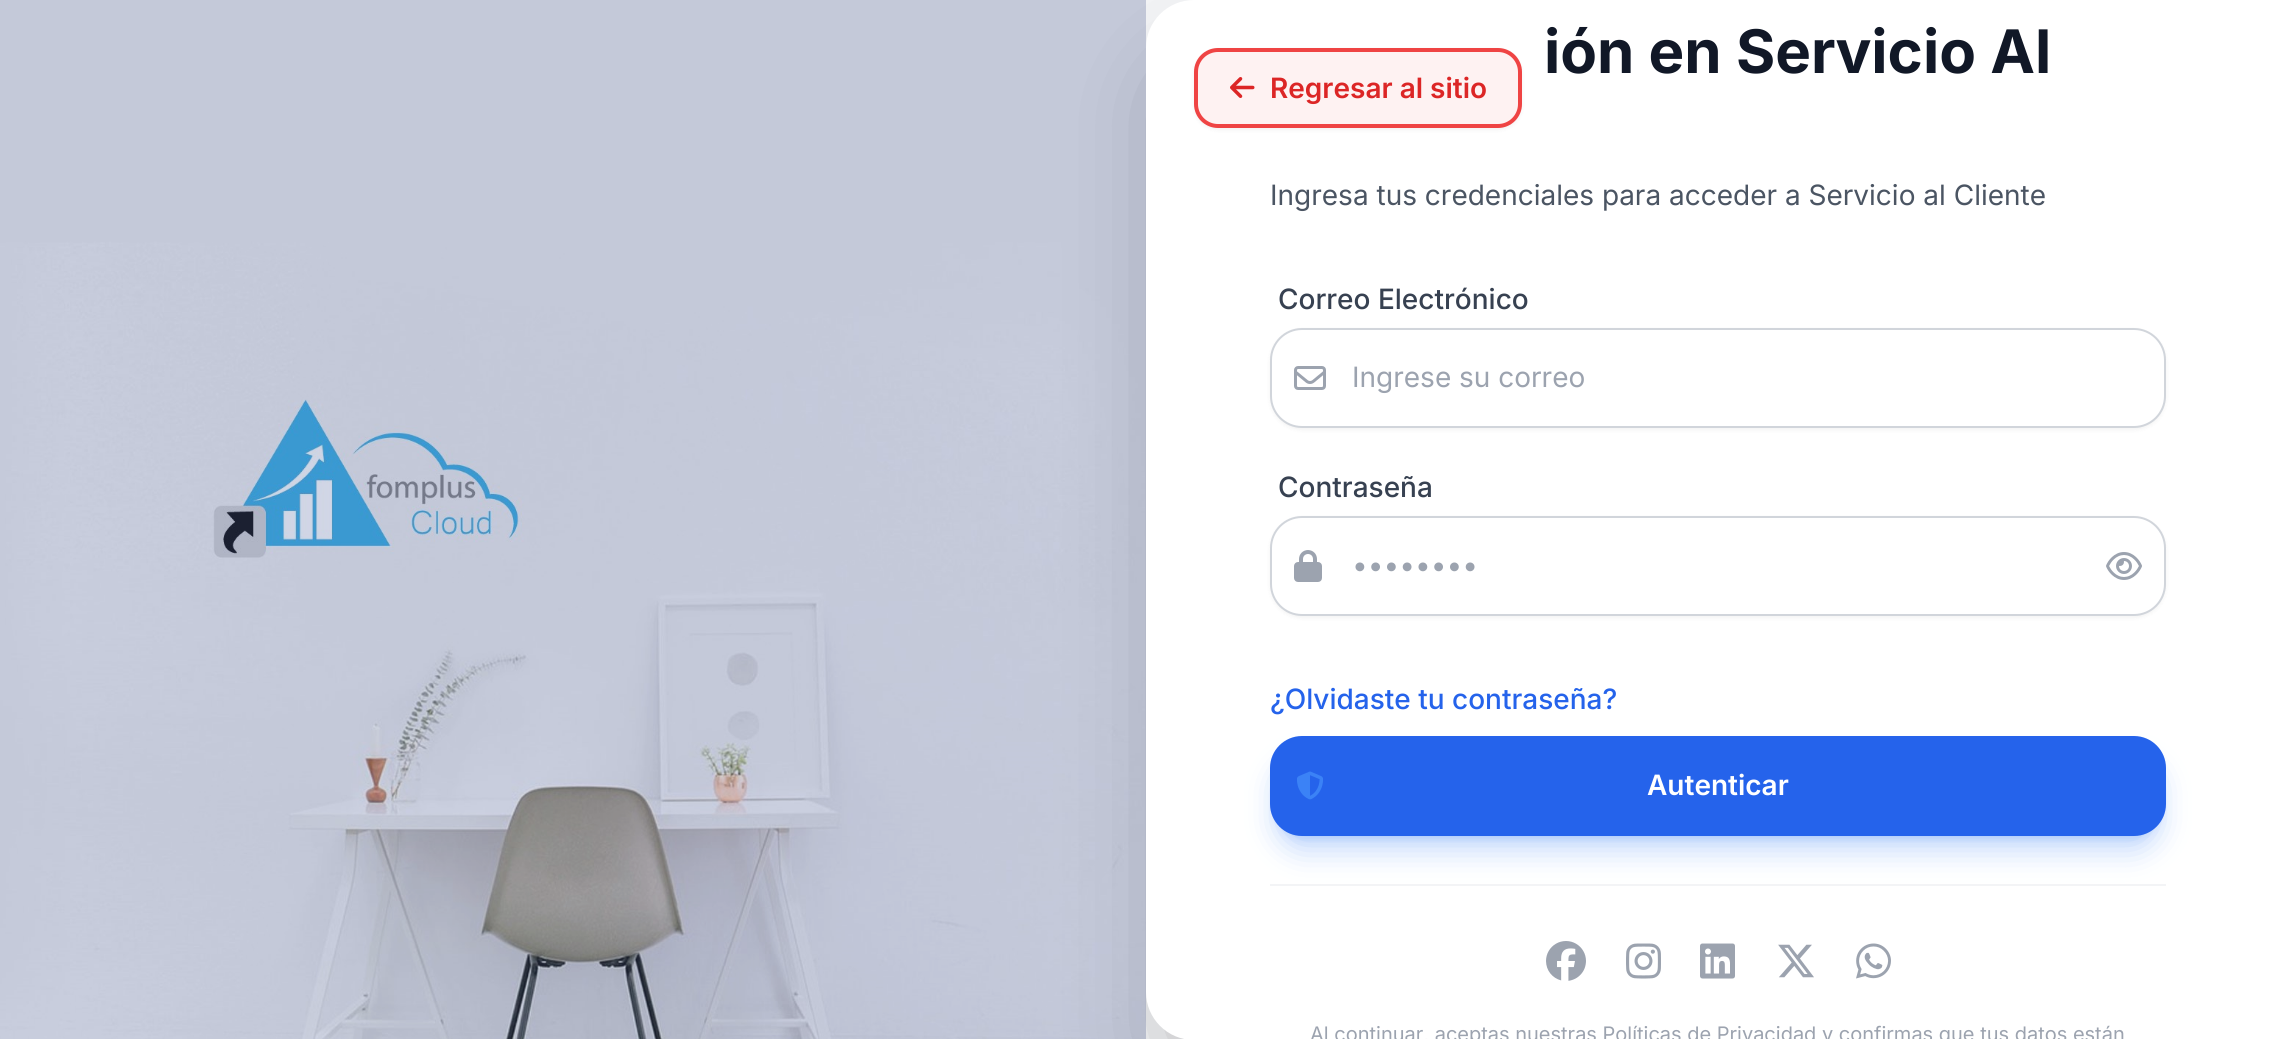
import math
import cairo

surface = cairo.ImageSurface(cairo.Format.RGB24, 2290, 1039)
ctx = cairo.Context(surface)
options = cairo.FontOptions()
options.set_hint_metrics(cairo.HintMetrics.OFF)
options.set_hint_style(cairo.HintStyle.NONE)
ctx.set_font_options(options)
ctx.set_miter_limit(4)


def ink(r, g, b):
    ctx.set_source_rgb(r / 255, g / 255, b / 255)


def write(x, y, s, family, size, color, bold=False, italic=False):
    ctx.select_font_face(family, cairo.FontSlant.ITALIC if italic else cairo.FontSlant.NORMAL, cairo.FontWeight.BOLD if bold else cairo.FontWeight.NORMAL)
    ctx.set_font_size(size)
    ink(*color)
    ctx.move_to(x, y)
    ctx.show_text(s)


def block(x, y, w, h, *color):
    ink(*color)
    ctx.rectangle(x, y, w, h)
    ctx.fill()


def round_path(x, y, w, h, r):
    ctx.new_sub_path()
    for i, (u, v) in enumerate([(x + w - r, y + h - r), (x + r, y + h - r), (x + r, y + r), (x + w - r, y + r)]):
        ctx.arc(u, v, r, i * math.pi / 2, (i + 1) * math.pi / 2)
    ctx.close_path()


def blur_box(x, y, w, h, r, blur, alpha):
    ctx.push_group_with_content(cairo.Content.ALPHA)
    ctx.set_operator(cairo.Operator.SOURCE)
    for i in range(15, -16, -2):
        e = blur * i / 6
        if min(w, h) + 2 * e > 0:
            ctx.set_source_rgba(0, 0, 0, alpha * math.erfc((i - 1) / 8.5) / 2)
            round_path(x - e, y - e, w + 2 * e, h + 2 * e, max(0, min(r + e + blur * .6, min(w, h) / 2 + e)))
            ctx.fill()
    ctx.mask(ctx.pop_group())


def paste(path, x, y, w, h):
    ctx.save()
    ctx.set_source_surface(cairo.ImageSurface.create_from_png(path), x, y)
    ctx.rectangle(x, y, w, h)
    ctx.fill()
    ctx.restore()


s1 = dict(family="Inter", size=60, color=(17, 24, 39), bold=True)
s2 = dict(family="Inter", size=28, color=(75, 85, 99))
s3 = dict(family="Inter Medium", size=28, color=(55, 65, 81))
s4 = dict(family="Inter", size=28, color=(156, 163, 175))
s5 = dict(family="Inter Medium", size=28, color=(37, 99, 235))
s6 = dict(family="Inter SemiBold", size=28, color=(255, 255, 255))
s7 = dict(family="Inter", size=20, color=(156, 163, 175))
s8 = dict(family="Inter SemiBold", size=28, color=(220, 38, 38))

ink(243, 244, 246)
ctx.paint()
paste("pic1.png", 0, 0, 1146, 1039)
ink(0, 0, 0)
blur_box(1170, 74, 1096, 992, 24, 50, 0.25)
ctx.set_source_rgba(0.118, 0.227, 0.541, 0.2)
ctx.rectangle(0, 0, 1146, 1039)
ctx.fill()
ink(255, 255, 255)
ctx.new_path()
ctx.move_to(1194, 0)
ctx.line_to(2290, 0)
ctx.line_to(2290, 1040)
ctx.line_to(1194, 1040)
ctx.curve_to(1167.5, 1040, 1146, 1018.5, 1146, 992)
ctx.line_to(1146, 48)
ctx.curve_to(1146, 21.5, 1167.5, 0, 1194, 0)
ctx.close_path()
ctx.fill()
write(1544, 73, "ión en Servicio Al", **s1)
write(1270, 205, "Ingresa tus credenciales para acceder a Servicio al Cliente", **s2)
write(1278, 309, "Correo Electrónico", **s3)
ink(0, 0, 0)
blur_box(1270, 330, 896, 100, 32, 2, 0.05)
ink(255, 255, 255)
round_path(1271, 329, 894, 98, 31)
ctx.fill_preserve()
ink(209, 213, 219)
ctx.stroke()
paste("pic2.png", 1294, 366, 32, 24)
write(1352, 387, "Ingrese su correo", **s4)
write(1278, 497, "Contraseña", **s3)
ink(0, 0, 0)
blur_box(1270, 518, 896, 100, 32, 2, 0.05)
ink(255, 255, 255)
round_path(1271, 517, 894, 98, 31)
ctx.fill_preserve()
ink(209, 213, 219)
ctx.stroke()
paste("pic3.png", 1294, 550, 28, 32)
write(1352, 575, "••••••••", **s4)
paste("pic4.png", 2106, 552, 36, 28)
write(1270, 709, "¿Olvidaste tu contraseña?", **s5)
ink(59, 130, 246)
blur_box(1278, 752, 880, 84, 24, 6, 0.3)
block(1270, 884, 896, 2, 243, 244, 246)
ink(59, 130, 246)
blur_box(1276, 762, 884, 88, 26, 15, 0.3)
ink(37, 99, 235)
round_path(1270, 736, 896, 100, 32)
ctx.fill()
paste("pic5.png", 1297, 771, 26, 29)
write(1647, 795, "Autenticar", **s6)
paste("pic6.png", 1546, 941, 40, 40)
paste("pic7.png", 1626, 943, 35, 36)
paste("pic8.png", 1700, 943, 35, 36)
paste("pic9.png", 1778, 944, 36, 34)
paste("pic10.png", 1856, 943, 35, 36)
write(1310, 1041, "Al continuar, aceptas nuestras Políticas de Privacidad y confirmas que tus datos están", **s7)
ink(0, 0, 0)
blur_box(1194, 50, 328, 80, 24, 2, 0.05)
ink(254, 242, 242)
round_path(1196, 50, 324, 76, 22)
ctx.fill_preserve()
ink(239, 68, 68)
ctx.set_line_width(4)
ctx.stroke()
paste("pic11.png", 1230, 77, 25, 21)
write(1270, 98, "Regresar al sitio", **s8)
surface.write_to_png("screenshot.png")
